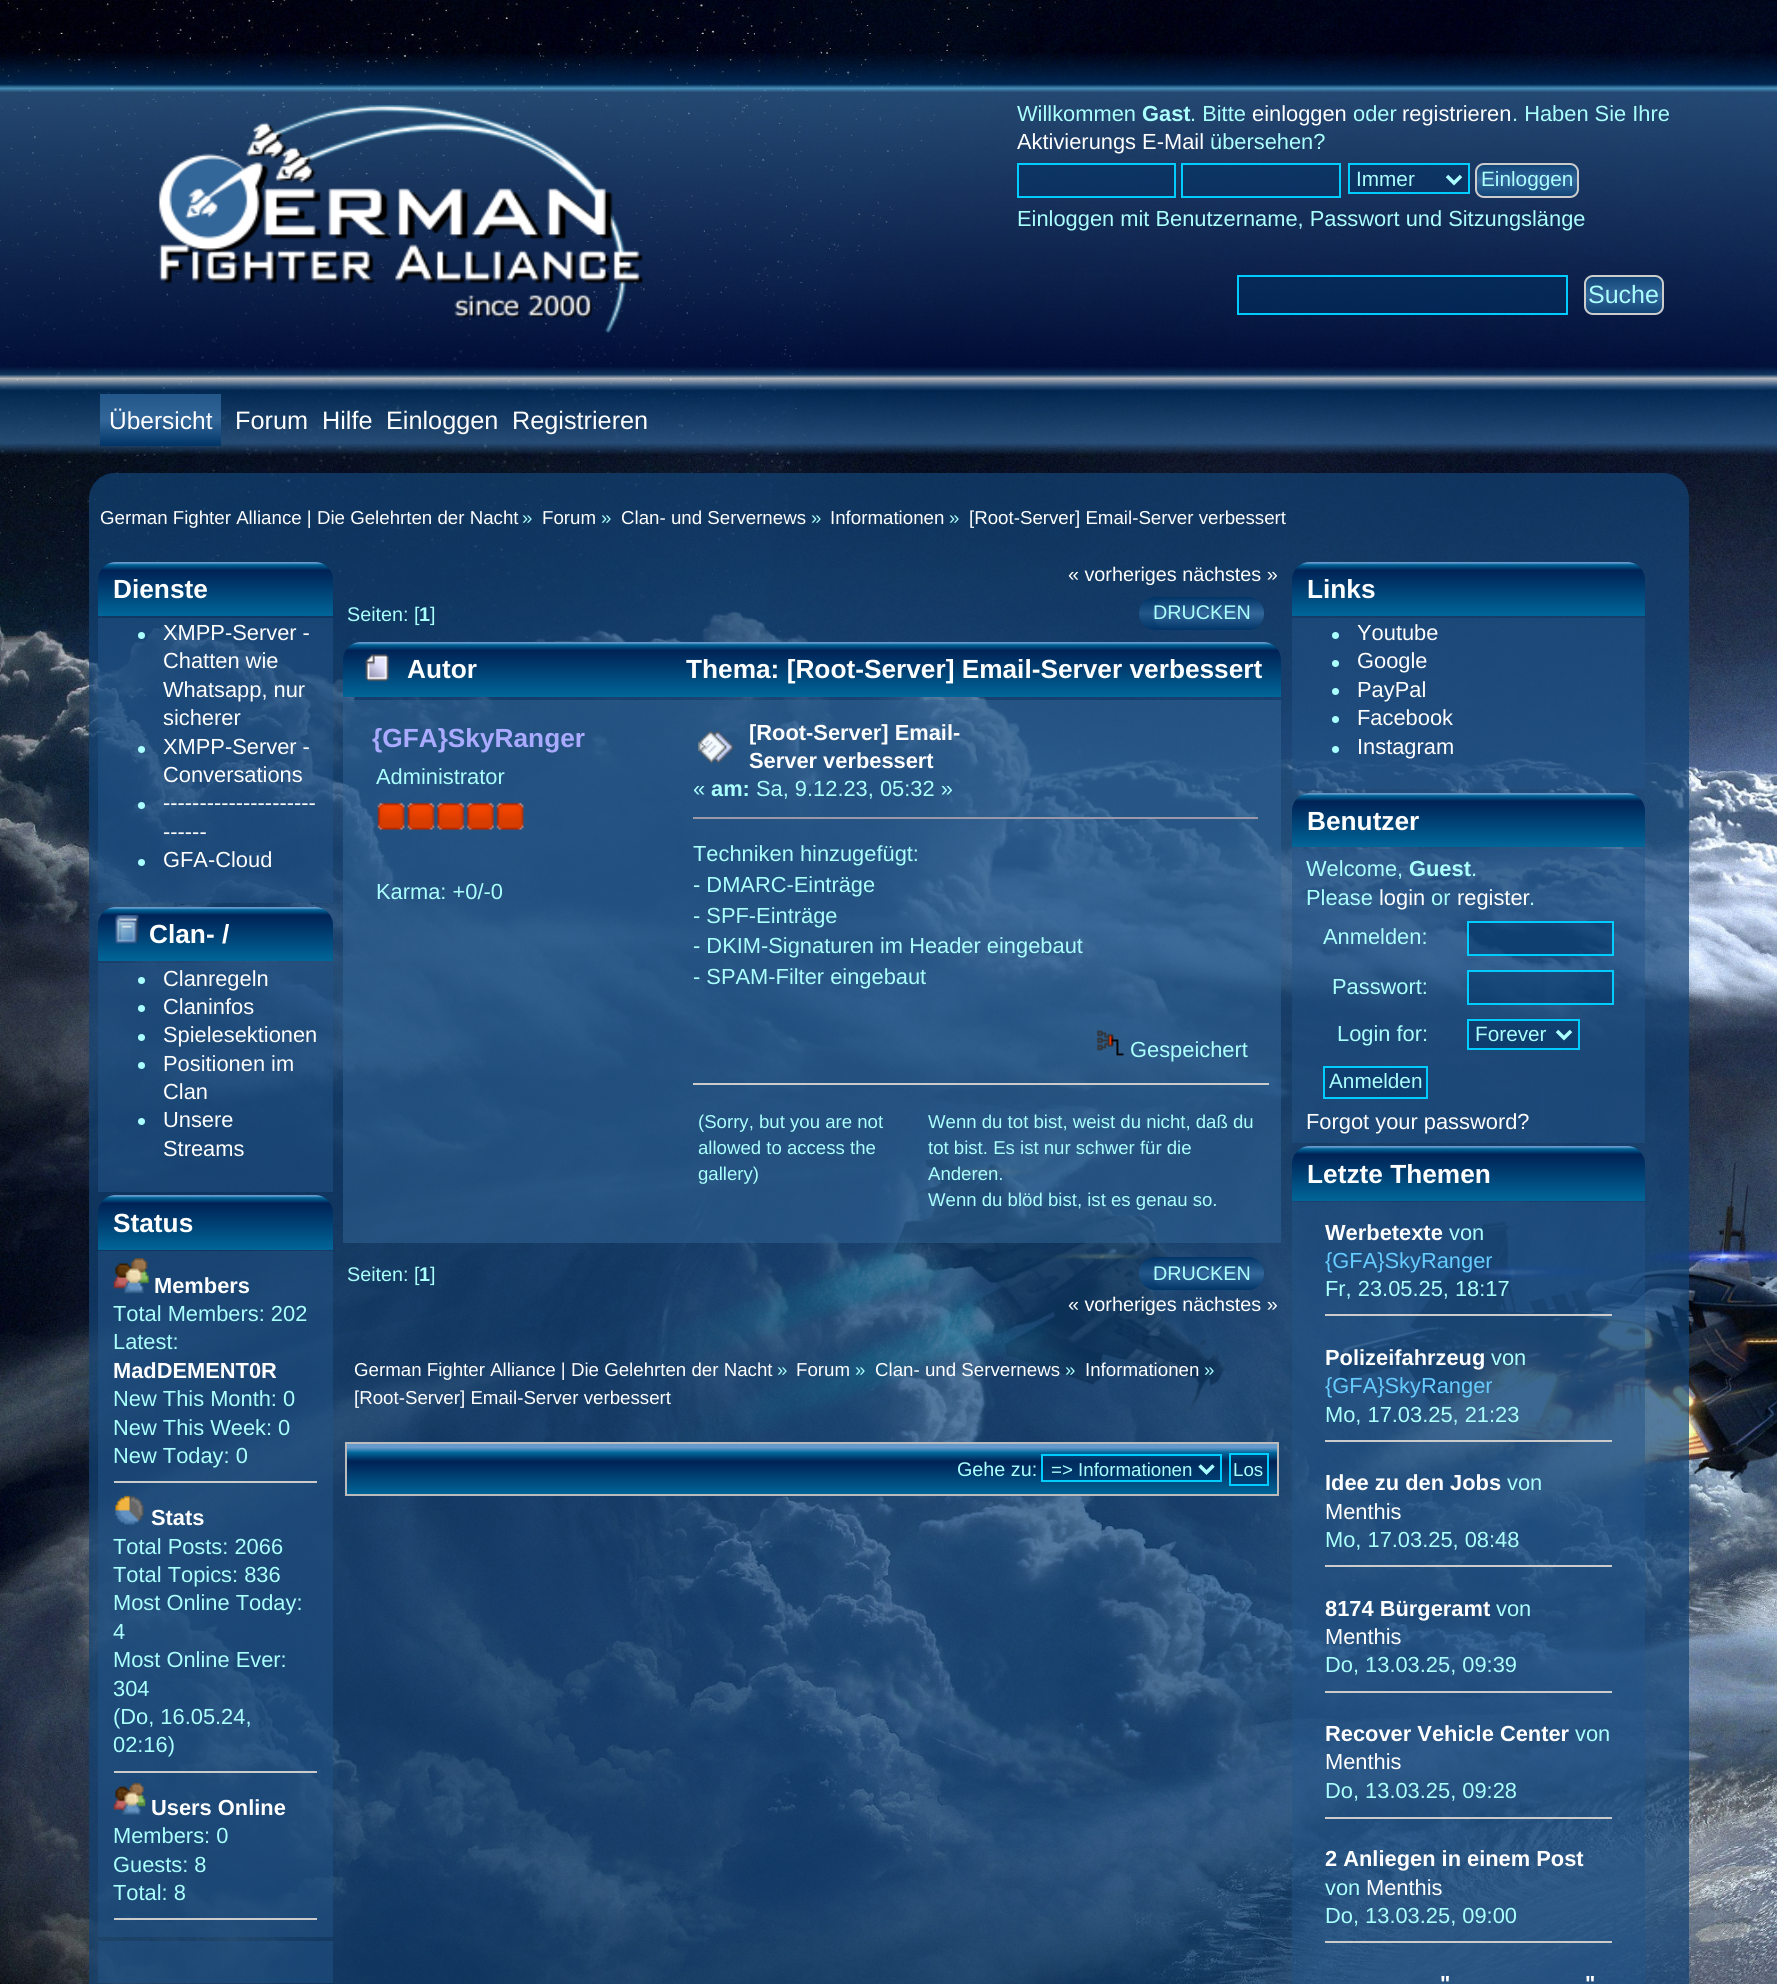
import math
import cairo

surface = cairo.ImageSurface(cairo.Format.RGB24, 1777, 1984)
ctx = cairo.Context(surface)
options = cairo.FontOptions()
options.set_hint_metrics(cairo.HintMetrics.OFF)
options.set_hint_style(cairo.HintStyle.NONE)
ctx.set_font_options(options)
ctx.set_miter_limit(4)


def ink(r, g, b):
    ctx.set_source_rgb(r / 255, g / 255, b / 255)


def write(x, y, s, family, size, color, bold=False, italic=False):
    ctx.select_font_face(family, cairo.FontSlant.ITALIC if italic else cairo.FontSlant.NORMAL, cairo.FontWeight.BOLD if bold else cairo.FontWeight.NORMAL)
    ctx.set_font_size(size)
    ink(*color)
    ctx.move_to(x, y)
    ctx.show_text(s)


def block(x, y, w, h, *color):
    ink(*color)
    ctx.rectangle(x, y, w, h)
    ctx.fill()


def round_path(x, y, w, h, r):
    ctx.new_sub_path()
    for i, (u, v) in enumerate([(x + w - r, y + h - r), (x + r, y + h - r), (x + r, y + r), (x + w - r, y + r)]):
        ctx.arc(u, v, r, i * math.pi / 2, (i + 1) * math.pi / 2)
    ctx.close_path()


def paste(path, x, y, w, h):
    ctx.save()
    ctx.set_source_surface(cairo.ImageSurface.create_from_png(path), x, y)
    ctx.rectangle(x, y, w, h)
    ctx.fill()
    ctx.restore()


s1 = dict(family="Liberation Sans", size=21.85, color=(170, 255, 255))
s2 = dict(family="Liberation Sans", size=21.85, color=(170, 255, 255), bold=True)
s3 = dict(family="Liberation Sans", size=21.85, color=(255, 255, 255))
s4 = dict(family="Liberation Sans", size=20.75, color=(170, 255, 255))
s5 = dict(family="Liberation Sans", size=25, color=(170, 255, 255))
s6 = dict(family="Liberation Sans", size=24.5, color=(255, 255, 255))
s7 = dict(family="Liberation Sans", size=25.25, color=(255, 255, 255))
s8 = dict(family="Liberation Sans", size=18.7, color=(255, 255, 255))
s9 = dict(family="Liberation Sans", size=18.7, color=(170, 255, 255))
s10 = dict(family="Liberation Sans", size=26.25, color=(255, 255, 255), bold=True)
s11 = dict(family="Liberation Sans", size=21.85, color=(255, 255, 255), bold=True)
s12 = dict(family="Liberation Sans", size=19.75, color=(255, 255, 255))
s13 = dict(family="Liberation Sans", size=19.75, color=(170, 255, 255))
s14 = dict(family="Liberation Sans", size=19.75, color=(170, 255, 255), bold=True)
s15 = dict(family="Liberation Sans", size=26.25, color=(170, 170, 255), bold=True)
s16 = dict(family="Liberation Sans", size=18.6, color=(170, 255, 255))
s17 = dict(family="Liberation Sans", size=21.85, color=(102, 204, 255))

ink(255, 255, 255)
ctx.paint()
paste("pic1.png", 0, 0, 1777, 1984)
write(1017, 121, "Willkommen", **s1)
write(1142, 121, "Gast", **s2)
write(1190, 121, ". Bitte", **s1)
write(1252, 121, "einloggen", **s3)
write(1353, 121, "oder", **s1)
write(1402, 121, "registrieren", **s3)
write(1512, 121, ". Haben Sie Ihre", **s1)
write(1017, 149, "Aktivierungs E-Mail", **s3)
write(1210, 149, "übersehen?", **s1)
ctx.set_source_rgba(0, 0.2, 0.4, 0.5)
ctx.rectangle(1018, 164, 157, 33)
ctx.fill_preserve()
ink(0, 204, 255)
ctx.stroke()
ctx.set_source_rgba(0, 0.2, 0.4, 0.5)
ctx.rectangle(1182, 164, 158, 33)
ctx.fill_preserve()
ink(0, 204, 255)
ctx.stroke()
ctx.set_source_rgba(0, 0.2, 0.4, 0.5)
ctx.rectangle(1349, 164, 120, 29)
ctx.fill_preserve()
ink(0, 204, 255)
ctx.stroke()
ctx.new_path()
ctx.move_to(1447, 176)
ctx.line_to(1454, 183)
ctx.line_to(1461, 176)
ink(170, 255, 255)
ctx.set_line_width(3.5)
ctx.stroke()
write(1356, 186, "Immer", **s4)
ctx.save()
round_path(1475, 163, 104, 35, 9)
ctx.clip()
gradient = cairo.LinearGradient(1527, 165, 1527, 196)
gradient.add_color_stop_rgba(0, 0.067, 0.267, 0.467, 1)
gradient.add_color_stop_rgba(0.5, 0.2, 0.4, 0.6, 1)
gradient.add_color_stop_rgba(1, 0.067, 0.267, 0.467, 1)
ctx.set_source(gradient)
ctx.rectangle(1475, 165, 104, 31)
ctx.fill()
ctx.restore()
round_path(1476, 164, 102, 33, 8)
ink(204, 204, 204)
ctx.set_line_width(2)
ctx.stroke()
write(1481, 186, "Einloggen", **s4)
write(1017, 226, "Einloggen mit Benutzername, Passwort und Sitzungslänge", **s1)
ctx.set_source_rgba(0, 0.2, 0.4, 0.5)
ctx.rectangle(1238, 276, 329, 38)
ctx.fill_preserve()
ink(0, 204, 255)
ctx.stroke()
ctx.save()
round_path(1584, 275, 80, 40, 9)
ctx.clip()
gradient = cairo.LinearGradient(1624, 277, 1624, 313)
gradient.add_color_stop_rgba(0, 0.067, 0.267, 0.467, 1)
gradient.add_color_stop_rgba(0.5, 0.2, 0.4, 0.6, 1)
gradient.add_color_stop_rgba(1, 0.067, 0.267, 0.467, 1)
ctx.set_source(gradient)
ctx.rectangle(1584, 277, 80, 36)
ctx.fill()
ctx.restore()
round_path(1585, 276, 78, 38, 8)
ink(204, 204, 204)
ctx.stroke()
write(1588, 303, "Suche", **s5)
gradient = cairo.LinearGradient(160, 446, 160, 394)
gradient.add_color_stop_rgba(0, 0, 0.2, 0.4, 1)
gradient.add_color_stop_rgba(0.5, 0.2, 0.4, 0.6, 1)
gradient.add_color_stop_rgba(1, 0.133, 0.333, 0.533, 1)
ctx.set_source(gradient)
ctx.rectangle(100, 394, 121, 52)
ctx.fill()
write(109, 429, "Übersicht", **s6)
write(235, 429, "Forum", **s7)
write(322, 429, "Hilfe", **s7)
write(386, 429, "Einloggen", **s7)
write(512, 429, "Registrieren", **s7)
paste("pic2.png", 158, 105, 485, 228)
ctx.set_source_rgba(0.067, 0.267, 0.467, 0.7)
round_path(89, 473, 1600, 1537, 26)
ctx.fill()
write(100, 524, "German Fighter Alliance | Die Gelehrten der Nacht", **s8)
write(522, 524, "»", **s9)
write(542, 524, "Forum", **s8)
write(601, 524, "»", **s9)
write(621, 524, "Clan- und Servernews", **s8)
write(811, 524, "»", **s9)
write(830, 524, "Informationen", **s8)
write(949, 524, "»", **s9)
write(969, 524, "[Root-Server] Email-Server verbessert", **s8)
gradient = cairo.LinearGradient(215, 562, 215, 616)
gradient.add_color_stop_rgba(0.02, 0.4, 0.6, 0.8, 1)
gradient.add_color_stop_rgba(0.05, 0, 0.4, 0.6, 1)
gradient.add_color_stop_rgba(0.15, 0, 0.133, 0.333, 1)
gradient.add_color_stop_rgba(1, 0, 0.4, 0.6, 1)
ctx.set_source(gradient)
ctx.new_path()
ctx.move_to(116, 562)
ctx.line_to(315, 562)
ctx.curve_to(325, 562, 333, 570, 333, 580)
ctx.line_to(333, 616)
ctx.line_to(98, 616)
ctx.line_to(98, 580)
ctx.curve_to(98, 570, 106, 562, 116, 562)
ctx.close_path()
ctx.fill()
write(113, 598, "Dienste", **s10)
ctx.set_source_rgba(0.133, 0.333, 0.533, 0.5)
ctx.rectangle(98, 618, 235, 285)
ctx.fill()
ink(170, 255, 255)
ctx.arc(141.5, 635.5, 3.5, 0, 2 * math.pi)
ctx.fill()
write(163, 640, "XMPP-Server -", **s3)
write(163, 668, "Chatten wie", **s3)
write(163, 697, "Whatsapp, nur", **s3)
write(163, 725, "sicherer", **s3)
ink(170, 255, 255)
ctx.new_path()
ctx.arc(141.5, 749.5, 3.5, 0, 2 * math.pi)
ctx.fill()
write(163, 754, "XMPP-Server -", **s3)
write(163, 782, "Conversations", **s3)
ink(170, 255, 255)
ctx.new_path()
ctx.arc(141.5, 805.5, 3.5, 0, 2 * math.pi)
ctx.fill()
write(163, 810, "---------------------", **s3)
write(163, 839, "------", **s3)
ink(170, 255, 255)
ctx.new_path()
ctx.arc(141.5, 862.5, 3.5, 0, 2 * math.pi)
ctx.fill()
write(163, 867, "GFA-Cloud", **s3)
gradient = cairo.LinearGradient(215, 907, 215, 961)
gradient.add_color_stop_rgba(0.02, 0.4, 0.6, 0.8, 1)
gradient.add_color_stop_rgba(0.05, 0, 0.4, 0.6, 1)
gradient.add_color_stop_rgba(0.15, 0, 0.133, 0.333, 1)
gradient.add_color_stop_rgba(1, 0, 0.4, 0.6, 1)
ctx.set_source(gradient)
ctx.new_path()
ctx.move_to(116, 907)
ctx.line_to(315, 907)
ctx.curve_to(325, 907, 333, 915, 333, 925)
ctx.line_to(333, 961)
ctx.line_to(98, 961)
ctx.line_to(98, 925)
ctx.curve_to(98, 915, 106, 907, 116, 907)
ctx.close_path()
ctx.fill()
paste("pic3.png", 115, 915, 24, 29)
write(149, 943, "Clan- /", **s10)
ctx.set_source_rgba(0.133, 0.333, 0.533, 0.5)
ctx.rectangle(98, 963, 235, 229)
ctx.fill()
ink(170, 255, 255)
ctx.arc(141.5, 980.5, 3.5, 0, 2 * math.pi)
ctx.fill()
write(163, 986, "Clanregeln", **s3)
ink(170, 255, 255)
ctx.new_path()
ctx.arc(141.5, 1008.5, 3.5, 0, 2 * math.pi)
ctx.fill()
write(163, 1014, "Claninfos", **s3)
ink(170, 255, 255)
ctx.new_path()
ctx.arc(141.5, 1037.5, 3.5, 0, 2 * math.pi)
ctx.fill()
write(163, 1042, "Spielesektionen", **s3)
ink(170, 255, 255)
ctx.new_path()
ctx.arc(141.5, 1065.5, 3.5, 0, 2 * math.pi)
ctx.fill()
write(163, 1071, "Positionen im", **s3)
write(163, 1099, "Clan", **s3)
ink(170, 255, 255)
ctx.new_path()
ctx.arc(141.5, 1121.5, 3.5, 0, 2 * math.pi)
ctx.fill()
write(163, 1127, "Unsere", **s3)
write(163, 1156, "Streams", **s3)
gradient = cairo.LinearGradient(215, 1195, 215, 1250)
gradient.add_color_stop_rgba(0.02, 0.4, 0.6, 0.8, 1)
gradient.add_color_stop_rgba(0.05, 0, 0.4, 0.6, 1)
gradient.add_color_stop_rgba(0.15, 0, 0.133, 0.333, 1)
gradient.add_color_stop_rgba(1, 0, 0.4, 0.6, 1)
ctx.set_source(gradient)
ctx.new_path()
ctx.move_to(116, 1195)
ctx.line_to(315, 1195)
ctx.curve_to(325, 1195, 333, 1203, 333, 1213)
ctx.line_to(333, 1250)
ctx.line_to(98, 1250)
ctx.line_to(98, 1213)
ctx.curve_to(98, 1203, 106, 1195, 116, 1195)
ctx.close_path()
ctx.fill()
write(113, 1232, "Status", **s10)
ctx.set_source_rgba(0.133, 0.333, 0.533, 0.5)
ctx.rectangle(98, 1251, 235, 686)
ctx.fill()
paste("pic4.png", 113, 1258, 36, 36)
write(154, 1293, "Members", **s11)
write(113, 1321, "Total Members: 202", **s1)
write(113, 1349, "Latest:", **s1)
write(113, 1378, "MadDEMENT0R", **s11)
write(113, 1406, "New This Month: 0", **s1)
write(113, 1435, "New This Week: 0", **s1)
write(113, 1463, "New Today: 0", **s1)
block(114, 1481, 203, 2, 204, 204, 204)
paste("pic5.png", 115, 1495, 29, 30)
write(151, 1525, "Stats", **s11)
write(113, 1554, "Total Posts: 2066", **s1)
write(113, 1582, "Total Topics: 836", **s1)
write(113, 1610, "Most Online Today:", **s1)
write(113, 1639, "4", **s1)
write(113, 1667, "Most Online Ever:", **s1)
write(113, 1696, "304", **s1)
write(113, 1724, "(Do, 16.05.24,", **s1)
write(113, 1752, "02:16)", **s1)
block(114, 1771, 203, 2, 204, 204, 204)
paste("pic6.png", 113, 1783, 33, 32)
write(151, 1815, "Users Online", **s11)
write(113, 1843, "Members: 0", **s1)
write(113, 1872, "Guests: 8", **s1)
write(113, 1900, "Total: 8", **s1)
block(114, 1918, 203, 2, 204, 204, 204)
ctx.set_source_rgba(0.133, 0.333, 0.533, 0.5)
ctx.rectangle(98, 1941, 235, 42)
ctx.fill()
write(1068, 581, "« vorheriges nächstes »", **s12)
write(347, 621, "Seiten: [", **s13)
write(419, 621, "1", **s14)
write(430, 621, "]", **s13)
gradient = cairo.LinearGradient(1201, 630, 1201, 597)
gradient.add_color_stop_rgba(0, 0, 0.2, 0.4, 1)
gradient.add_color_stop_rgba(0.5, 0.133, 0.333, 0.533, 1)
gradient.add_color_stop_rgba(1, 0, 0.2, 0.4, 1)
ctx.set_source(gradient)
round_path(1139, 597, 125, 33, 16.5)
ctx.fill()
gradient = cairo.LinearGradient(1208, 630, 1208, 597)
gradient.add_color_stop_rgba(0, 0, 0.2, 0.4, 1)
gradient.add_color_stop_rgba(0.5, 0.2, 0.4, 0.6, 1)
gradient.add_color_stop_rgba(1, 0, 0.2, 0.4, 1)
ctx.set_source(gradient)
round_path(1153, 597, 111, 33, 16.5)
ctx.fill()
write(1153, 619, "DRUCKEN", **s13)
gradient = cairo.LinearGradient(812, 642, 812, 697)
gradient.add_color_stop_rgba(0.02, 0.4, 0.6, 0.8, 1)
gradient.add_color_stop_rgba(0.05, 0, 0.4, 0.6, 1)
gradient.add_color_stop_rgba(0.15, 0, 0.133, 0.333, 1)
gradient.add_color_stop_rgba(1, 0, 0.4, 0.6, 1)
ctx.set_source(gradient)
ctx.new_path()
ctx.move_to(361, 642)
ctx.line_to(1263, 642)
ctx.curve_to(1273, 642, 1281, 650, 1281, 660)
ctx.line_to(1281, 697)
ctx.line_to(343, 697)
ctx.line_to(343, 660)
ctx.curve_to(343, 650, 351, 642, 361, 642)
ctx.close_path()
ctx.fill()
paste("pic7.png", 365, 654, 24, 28)
write(407, 678, "Autor", **s10)
write(686, 678, "Thema: [Root-Server] Email-Server verbessert", **s10)
ctx.set_source_rgba(0.2, 0.4, 0.6, 0.5)
ctx.rectangle(343, 700, 938, 543)
ctx.fill()
write(372, 747, "{GFA}SkyRanger", **s15)
write(376, 784, "Administrator", **s1)
paste("pic8.png", 377, 802, 28, 28)
paste("pic9.png", 407, 802, 28, 28)
paste("pic10.png", 437, 802, 28, 28)
paste("pic11.png", 466, 802, 28, 28)
paste("pic12.png", 496, 802, 28, 28)
write(376, 899, "Karma: +0/-0", **s1)
paste("pic13.png", 698, 731, 36, 33)
write(749, 740, "[Root-Server] Email-", **s11)
write(749, 768, "Server verbessert", **s11)
write(693, 796, "«", **s1)
write(711, 796, "am:", **s2)
write(756, 796, "Sa, 9.12.23, 05:32 »", **s1)
block(693, 817, 565, 2, 153, 153, 170)
write(693, 861, "Techniken hinzugefügt:", **s1)
write(693, 892, "- DMARC-Einträge", **s1)
write(693, 923, "- SPF-Einträge", **s1)
write(693, 953, "- DKIM-Signaturen im Header eingebaut", **s1)
write(693, 984, "- SPAM-Filter eingebaut", **s1)
paste("pic14.png", 1096, 1030, 28, 26)
write(1130, 1057, "Gespeichert", **s1)
block(693, 1083, 576, 2, 204, 204, 204)
write(698, 1128, "(Sorry, but you are not", **s16)
write(698, 1154, "allowed to access the", **s16)
write(698, 1180, "gallery)", **s16)
write(928, 1128, "Wenn du tot bist, weist du nicht, daß du", **s16)
write(928, 1154, "tot bist. Es ist nur schwer für die", **s16)
write(928, 1180, "Anderen.", **s16)
write(928, 1206, "Wenn du blöd bist, ist es genau so.", **s16)
write(347, 1281, "Seiten: [", **s13)
write(419, 1281, "1", **s14)
write(430, 1281, "]", **s13)
gradient = cairo.LinearGradient(1201, 1290, 1201, 1257)
gradient.add_color_stop_rgba(0, 0, 0.2, 0.4, 1)
gradient.add_color_stop_rgba(0.5, 0.133, 0.333, 0.533, 1)
gradient.add_color_stop_rgba(1, 0, 0.2, 0.4, 1)
ctx.set_source(gradient)
round_path(1139, 1257, 125, 33, 16.5)
ctx.fill()
gradient = cairo.LinearGradient(1208, 1290, 1208, 1257)
gradient.add_color_stop_rgba(0, 0, 0.2, 0.4, 1)
gradient.add_color_stop_rgba(0.5, 0.2, 0.4, 0.6, 1)
gradient.add_color_stop_rgba(1, 0, 0.2, 0.4, 1)
ctx.set_source(gradient)
round_path(1153, 1257, 111, 33, 16.5)
ctx.fill()
write(1153, 1280, "DRUCKEN", **s13)
write(1068, 1311, "« vorheriges nächstes »", **s12)
write(354, 1376, "German Fighter Alliance | Die Gelehrten der Nacht", **s8)
write(777, 1376, "»", **s9)
write(796, 1376, "Forum", **s8)
write(855, 1376, "»", **s9)
write(875, 1376, "Clan- und Servernews", **s8)
write(1065, 1376, "»", **s9)
write(1085, 1376, "Informationen", **s8)
write(1204, 1376, "»", **s9)
write(354, 1404, "[Root-Server] Email-Server verbessert", **s8)
gradient = cairo.LinearGradient(812, 1444, 812, 1495)
gradient.add_color_stop_rgba(0.07, 0.4, 0.6, 0.8, 1)
gradient.add_color_stop_rgba(0.17, 0, 0.4, 0.6, 1)
gradient.add_color_stop_rgba(0.34, 0, 0.133, 0.333, 1)
gradient.add_color_stop_rgba(1, 0, 0.4, 0.6, 1)
ctx.set_source(gradient)
ctx.rectangle(347, 1444, 930, 50)
ctx.fill()
ctx.rectangle(346, 1443, 932, 52)
ink(187, 187, 187)
ctx.stroke()
write(957, 1476, "Gehe zu:", **s13)
ctx.set_source_rgba(0, 0.2, 0.4, 0.5)
ctx.rectangle(1042, 1455, 179, 26)
ctx.fill_preserve()
ink(0, 204, 255)
ctx.stroke()
ctx.new_path()
ctx.move_to(1199.5, 1465.5)
ctx.line_to(1206.5, 1472.5)
ctx.line_to(1213.5, 1465.5)
ink(170, 255, 255)
ctx.set_line_width(3.5)
ctx.stroke()
write(1051, 1476, "=> Informationen", **s9)
ctx.set_source_rgba(0, 0.2, 0.4, 0.5)
ctx.rectangle(1230, 1454, 38, 31)
ctx.fill_preserve()
ink(0, 204, 255)
ctx.set_line_width(2)
ctx.stroke()
write(1233, 1476, "Los", **s9)
gradient = cairo.LinearGradient(1468, 562, 1468, 616)
gradient.add_color_stop_rgba(0.02, 0.4, 0.6, 0.8, 1)
gradient.add_color_stop_rgba(0.05, 0, 0.4, 0.6, 1)
gradient.add_color_stop_rgba(0.15, 0, 0.133, 0.333, 1)
gradient.add_color_stop_rgba(1, 0, 0.4, 0.6, 1)
ctx.set_source(gradient)
ctx.new_path()
ctx.move_to(1310, 562)
ctx.line_to(1627, 562)
ctx.curve_to(1637, 562, 1645, 570, 1645, 580)
ctx.line_to(1645, 616)
ctx.line_to(1292, 616)
ctx.line_to(1292, 580)
ctx.curve_to(1292, 570, 1300, 562, 1310, 562)
ctx.close_path()
ctx.fill()
write(1307, 598, "Links", **s10)
ctx.set_source_rgba(0.133, 0.333, 0.533, 0.5)
ctx.rectangle(1292, 618, 353, 171)
ctx.fill()
ink(170, 255, 255)
ctx.arc(1335.5, 635.5, 3.5, 0, 2 * math.pi)
ctx.fill()
write(1357, 640, "Youtube", **s3)
ink(170, 255, 255)
ctx.new_path()
ctx.arc(1335.5, 663.5, 3.5, 0, 2 * math.pi)
ctx.fill()
write(1357, 668, "Google", **s3)
ink(170, 255, 255)
ctx.new_path()
ctx.arc(1335.5, 691.5, 3.5, 0, 2 * math.pi)
ctx.fill()
write(1357, 697, "PayPal", **s3)
ink(170, 255, 255)
ctx.new_path()
ctx.arc(1335.5, 719.5, 3.5, 0, 2 * math.pi)
ctx.fill()
write(1357, 725, "Facebook", **s3)
ink(170, 255, 255)
ctx.new_path()
ctx.arc(1335.5, 749.5, 3.5, 0, 2 * math.pi)
ctx.fill()
write(1357, 754, "Instagram", **s3)
gradient = cairo.LinearGradient(1468, 793, 1468, 847)
gradient.add_color_stop_rgba(0.02, 0.4, 0.6, 0.8, 1)
gradient.add_color_stop_rgba(0.05, 0, 0.4, 0.6, 1)
gradient.add_color_stop_rgba(0.15, 0, 0.133, 0.333, 1)
gradient.add_color_stop_rgba(1, 0, 0.4, 0.6, 1)
ctx.set_source(gradient)
ctx.new_path()
ctx.move_to(1310, 793)
ctx.line_to(1627, 793)
ctx.curve_to(1637, 793, 1645, 801, 1645, 811)
ctx.line_to(1645, 847)
ctx.line_to(1292, 847)
ctx.line_to(1292, 811)
ctx.curve_to(1292, 801, 1300, 793, 1310, 793)
ctx.close_path()
ctx.fill()
write(1307, 830, "Benutzer", **s10)
ctx.set_source_rgba(0.133, 0.333, 0.533, 0.5)
ctx.rectangle(1292, 849, 353, 294)
ctx.fill()
write(1306, 876, "Welcome,", **s1)
write(1409, 876, "Guest", **s2)
write(1471, 876, ".", **s1)
write(1306, 905, "Please", **s1)
write(1379, 905, "login", **s3)
write(1431, 905, "or", **s1)
write(1457, 905, "register", **s3)
write(1529, 905, ".", **s1)
write(1323, 944, "Anmelden:", **s1)
ctx.set_source_rgba(0, 0.2, 0.4, 0.5)
ctx.rectangle(1468, 922, 145, 33)
ctx.fill_preserve()
ink(0, 204, 255)
ctx.stroke()
write(1332, 994, "Passwort:", **s1)
ctx.set_source_rgba(0, 0.2, 0.4, 0.5)
ctx.rectangle(1468, 971, 145, 33)
ctx.fill_preserve()
ink(0, 204, 255)
ctx.stroke()
write(1337, 1041, "Login for:", **s1)
ctx.set_source_rgba(0, 0.2, 0.4, 0.5)
ctx.rectangle(1468, 1020, 111, 29)
ctx.fill_preserve()
ink(0, 204, 255)
ctx.stroke()
ctx.new_path()
ctx.move_to(1557, 1031)
ctx.line_to(1564, 1038)
ctx.line_to(1571, 1031)
ink(170, 255, 255)
ctx.set_line_width(3.5)
ctx.stroke()
write(1475, 1041, "Forever", **s4)
ctx.set_source_rgba(0, 0.2, 0.4, 0.5)
ctx.rectangle(1324, 1067, 103, 31)
ctx.fill_preserve()
ink(0, 204, 255)
ctx.set_line_width(2)
ctx.stroke()
write(1329, 1088, "Anmelden", **s4)
write(1306, 1129, "Forgot your password?", **s3)
gradient = cairo.LinearGradient(1468, 1146, 1468, 1201)
gradient.add_color_stop_rgba(0.02, 0.4, 0.6, 0.8, 1)
gradient.add_color_stop_rgba(0.05, 0, 0.4, 0.6, 1)
gradient.add_color_stop_rgba(0.15, 0, 0.133, 0.333, 1)
gradient.add_color_stop_rgba(1, 0, 0.4, 0.6, 1)
ctx.set_source(gradient)
ctx.new_path()
ctx.move_to(1310, 1146)
ctx.line_to(1627, 1146)
ctx.curve_to(1637, 1146, 1645, 1154, 1645, 1164)
ctx.line_to(1645, 1201)
ctx.line_to(1292, 1201)
ctx.line_to(1292, 1164)
ctx.curve_to(1292, 1154, 1300, 1146, 1310, 1146)
ctx.close_path()
ctx.fill()
write(1307, 1183, "Letzte Themen", **s10)
ctx.set_source_rgba(0.133, 0.333, 0.533, 0.5)
ctx.rectangle(1292, 1202, 353, 782)
ctx.fill()
write(1325, 1240, "Werbetexte", **s11)
write(1449, 1240, "von", **s1)
write(1325, 1268, "{GFA}SkyRanger", **s17)
write(1325, 1296, "Fr, 23.05.25, 18:17", **s1)
block(1325, 1314, 287, 2, 204, 204, 204)
write(1325, 1365, "Polizeifahrzeug", **s11)
write(1491, 1365, "von", **s1)
write(1325, 1393, "{GFA}SkyRanger", **s17)
write(1325, 1422, "Mo, 17.03.25, 21:23", **s1)
block(1325, 1440, 287, 2, 204, 204, 204)
write(1325, 1490, "Idee zu den Jobs", **s11)
write(1507, 1490, "von", **s1)
write(1325, 1519, "Menthis", **s3)
write(1325, 1547, "Mo, 17.03.25, 08:48", **s1)
block(1325, 1565, 287, 2, 204, 204, 204)
write(1325, 1616, "8174 Bürgeramt", **s11)
write(1496, 1616, "von", **s1)
write(1325, 1644, "Menthis", **s3)
write(1325, 1672, "Do, 13.03.25, 09:39", **s1)
block(1325, 1691, 287, 2, 204, 204, 204)
write(1325, 1741, "Recover Vehicle Center", **s11)
write(1575, 1741, "von", **s1)
write(1325, 1769, "Menthis", **s3)
write(1325, 1798, "Do, 13.03.25, 09:28", **s1)
block(1325, 1817, 287, 2, 204, 204, 204)
write(1325, 1866, "2 Anliegen in einem Post", **s11)
write(1325, 1895, "von", **s1)
write(1366, 1895, "Menthis", **s3)
write(1325, 1923, "Do, 13.03.25, 09:00", **s1)
block(1325, 1941, 287, 2, 204, 204, 204)
write(1440, 1991, "\"", **s11)
write(1585, 1991, "\"", **s11)
surface.write_to_png("screenshot.png")
